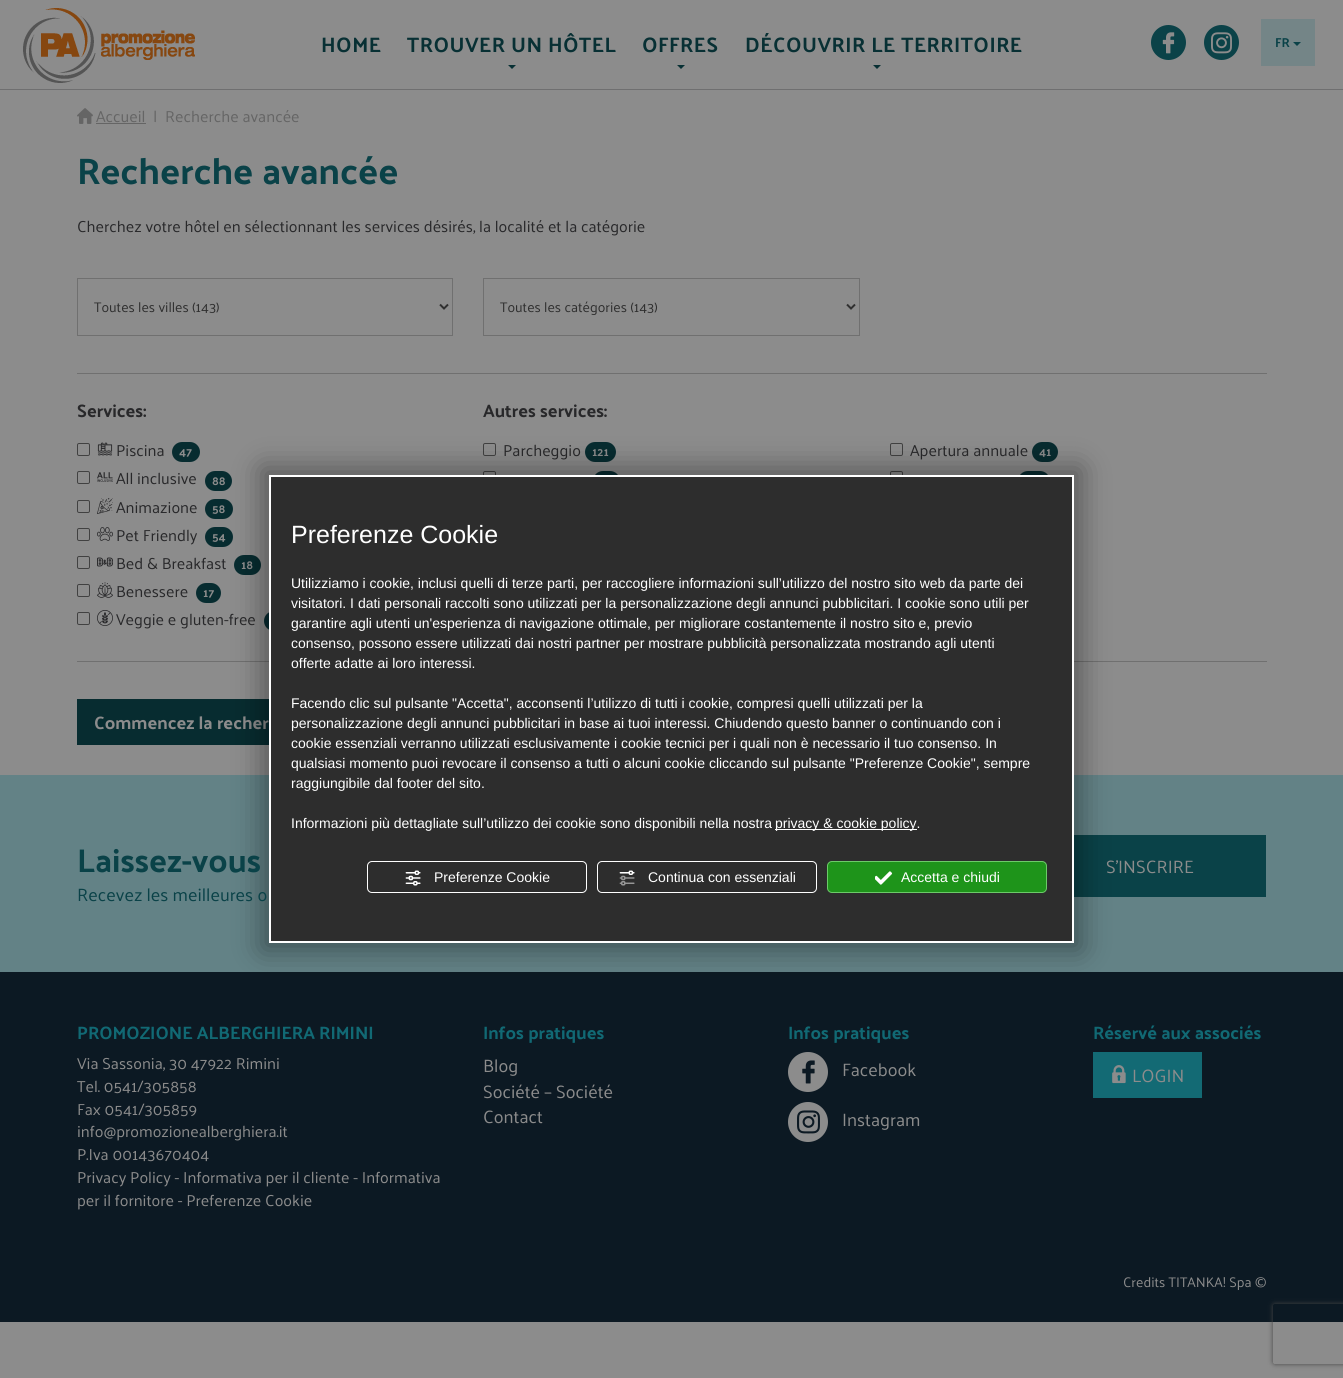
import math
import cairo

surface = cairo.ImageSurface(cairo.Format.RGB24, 1343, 1378)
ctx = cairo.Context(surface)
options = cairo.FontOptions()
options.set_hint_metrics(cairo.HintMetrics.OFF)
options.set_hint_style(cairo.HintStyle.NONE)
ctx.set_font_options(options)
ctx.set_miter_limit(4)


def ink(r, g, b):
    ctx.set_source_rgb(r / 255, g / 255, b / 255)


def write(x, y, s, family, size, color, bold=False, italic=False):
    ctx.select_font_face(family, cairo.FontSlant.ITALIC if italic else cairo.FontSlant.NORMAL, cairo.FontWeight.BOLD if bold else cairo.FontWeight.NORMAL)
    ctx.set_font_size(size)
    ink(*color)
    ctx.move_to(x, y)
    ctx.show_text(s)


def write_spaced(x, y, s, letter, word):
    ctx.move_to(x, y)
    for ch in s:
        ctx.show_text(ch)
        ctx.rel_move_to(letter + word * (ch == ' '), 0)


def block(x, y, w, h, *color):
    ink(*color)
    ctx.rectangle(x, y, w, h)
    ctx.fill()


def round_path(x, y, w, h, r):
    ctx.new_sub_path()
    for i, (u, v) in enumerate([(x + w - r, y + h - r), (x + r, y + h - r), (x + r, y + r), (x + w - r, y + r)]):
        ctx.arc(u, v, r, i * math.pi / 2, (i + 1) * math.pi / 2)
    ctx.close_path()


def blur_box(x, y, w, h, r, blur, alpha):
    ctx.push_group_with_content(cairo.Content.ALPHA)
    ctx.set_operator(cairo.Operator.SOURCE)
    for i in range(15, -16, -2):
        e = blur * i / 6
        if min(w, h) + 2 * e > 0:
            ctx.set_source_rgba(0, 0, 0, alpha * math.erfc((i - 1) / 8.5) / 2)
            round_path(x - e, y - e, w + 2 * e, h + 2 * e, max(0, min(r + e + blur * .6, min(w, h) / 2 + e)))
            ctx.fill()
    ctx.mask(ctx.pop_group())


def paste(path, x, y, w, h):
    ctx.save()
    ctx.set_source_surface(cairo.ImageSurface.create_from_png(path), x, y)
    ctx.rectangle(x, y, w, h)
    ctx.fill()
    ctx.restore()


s1 = dict(family="Palanquin", size=13, color=(10, 66, 72), bold=True)
s2 = dict(family="Palanquin", size=16, color=(101, 101, 101))
s3 = dict(family="Palanquin", size=37, color=(10, 66, 72), bold=True)
s4 = dict(family="Palanquin", size=16, color=(40, 40, 42))
s5 = dict(family="Palanquin", size=14, color=(47, 47, 47))
s6 = dict(family="Palanquin", size=18, color=(40, 40, 42), bold=True)
s7 = dict(family="Palanquin", size=12, color=(140, 140, 140), bold=True)
s8 = dict(family="Palanquin", size=18, color=(140, 140, 140), bold=True)
s9 = dict(family="Liberation Sans", size=25, color=(255, 255, 255))
s10 = dict(family="Liberation Sans", size=14, color=(255, 255, 255))
s11 = dict(family="Palanquin", size=33, color=(10, 66, 72), bold=True)
s12 = dict(family="Palanquin", size=18, color=(10, 66, 72))
s13 = dict(family="Palanquin", size=18, color=(140, 140, 140))
s14 = dict(family="Palanquin", size=18, color=(17, 105, 116), bold=True)
s15 = dict(family="Palanquin", size=16, color=(140, 140, 140))
s16 = dict(family="Palanquin", size=14, color=(140, 140, 140))

ink(140, 140, 140)
ctx.paint()
block(0, 89, 1343, 1, 111, 111, 112)
paste("pic1.png", 23, 8, 172, 75)
ctx.select_font_face("Palanquin", cairo.FontSlant.NORMAL, cairo.FontWeight.BOLD)
ctx.set_font_size(21)
ink(8, 48, 52)
write_spaced(321, 52, "HOME", 0.5, 0)
write_spaced(407, 52, "TROUVER UN HÔTEL", 0.5, 0)
ctx.new_path()
ctx.move_to(508, 65)
ctx.line_to(516, 65)
ctx.line_to(512, 69)
ctx.close_path()
ctx.fill()
write_spaced(642, 52, "OFFRES", 0.5, 0)
ctx.new_path()
ctx.move_to(677, 65)
ctx.line_to(685, 65)
ctx.line_to(681, 69)
ctx.close_path()
ctx.fill()
write_spaced(745, 52, "DÉCOUVRIR LE TERRITOIRE", 0.5, 0)
ctx.new_path()
ctx.move_to(873, 65)
ctx.line_to(881, 65)
ctx.line_to(877, 69)
ctx.close_path()
ctx.fill()
ink(11, 66, 72)
ctx.arc(1168.5, 42.5, 17.5, 0, 2 * math.pi)
ctx.fill()
paste("pic2.png", 1162, 32, 13, 22)
ctx.arc(1221.5, 42.5, 17.5, 0, 2 * math.pi)
ctx.fill()
paste("pic3.png", 1211, 32, 21, 22)
block(1261, 19, 54, 47, 116, 133, 135)
write(1275, 47, "FR", **s1)
ink(11, 66, 72)
ctx.new_path()
ctx.move_to(1293, 42)
ctx.line_to(1301, 42)
ctx.line_to(1297, 46)
ctx.close_path()
ctx.fill()
paste("pic4.png", 77, 108, 16, 16)
write(96, 122, "Accueil", **s2)
block(96, 123, 50, 1, 101, 101, 101)
write(153, 122, "|", **s2)
write(165, 122, "Recherche avancée", **s2)
write(77, 184, "Recherche avancée", **s3)
write(77, 232, "Cherchez votre hôtel en sélectionnant les services désirés, la localité et la catégorie", **s4)
ctx.rectangle(77.5, 278.5, 375, 57)
ink(112, 112, 112)
ctx.set_line_width(1)
ctx.stroke()
ctx.new_path()
ctx.move_to(440, 304.5)
ctx.line_to(444, 308.5)
ctx.line_to(448, 304.5)
ink(47, 47, 47)
ctx.set_line_width(2)
ctx.stroke()
write(94, 312, "Toutes les villes (143)", **s5)
ctx.rectangle(483.5, 278.5, 376, 57)
ink(112, 112, 112)
ctx.set_line_width(1)
ctx.stroke()
ctx.new_path()
ctx.move_to(847, 304.5)
ctx.line_to(851, 308.5)
ctx.line_to(855, 304.5)
ink(47, 47, 47)
ctx.set_line_width(2)
ctx.stroke()
write(500, 312, "Toutes les catégories (143)", **s5)
block(77, 373, 1190, 1, 112, 112, 112)
block(77, 661, 1190, 1, 112, 112, 112)
write(77, 417, "Services:", **s6)
round_path(77.5, 443.5, 12, 12, 1.5)
ink(65, 65, 65)
ctx.set_line_width(1)
ctx.stroke()
paste("pic5.png", 97, 442, 16, 14)
write(116, 456, "Piscina", **s4)
ink(7, 44, 48)
round_path(172, 442, 28, 20, 10)
ctx.fill()
write(179, 456, "47", **s7)
round_path(77.5, 471.5, 12, 12, 1.5)
ink(65, 65, 65)
ctx.stroke()
paste("pic6.png", 97, 472, 16, 10)
write(116, 484, "All inclusive", **s4)
ink(7, 44, 48)
round_path(205, 471, 27, 20, 10)
ctx.fill()
write(212, 485, "88", **s7)
round_path(77.5, 500.5, 12, 12, 1.5)
ink(65, 65, 65)
ctx.stroke()
paste("pic7.png", 97, 498, 16, 16)
write(116, 513, "Animazione", **s4)
ink(7, 44, 48)
round_path(205, 499, 28, 20, 10)
ctx.fill()
write(212, 513, "58", **s7)
round_path(77.5, 528.5, 12, 12, 1.5)
ink(65, 65, 65)
ctx.stroke()
paste("pic8.png", 97, 527, 16, 14)
write(116, 541, "Pet Friendly", **s4)
ink(7, 44, 48)
round_path(205, 527, 28, 20, 10)
ctx.fill()
write(212, 541, "54", **s7)
round_path(77.5, 556.5, 12, 12, 1.5)
ink(65, 65, 65)
ctx.stroke()
paste("pic9.png", 97, 557, 16, 10)
write(116, 569, "Bed & Breakfast", **s4)
ink(7, 44, 48)
round_path(234, 555, 27, 20, 10)
ctx.fill()
write(241, 569, "18", **s7)
round_path(77.5, 584.5, 12, 12, 1.5)
ink(65, 65, 65)
ctx.stroke()
paste("pic10.png", 97, 582, 16, 16)
write(116, 597, "Benessere", **s4)
ink(7, 44, 48)
round_path(196, 583, 25, 20, 10)
ctx.fill()
write(203, 597, "17", **s7)
round_path(77.5, 612.5, 12, 12, 1.5)
ink(65, 65, 65)
ctx.stroke()
paste("pic11.png", 97, 610, 16, 16)
write(116, 625, "Veggie e gluten-free", **s4)
ink(7, 44, 48)
round_path(264, 611, 26, 20, 10)
ctx.fill()
write(483, 417, "Autres services:", **s6)
round_path(483.5, 443.5, 12, 12, 1.5)
ink(65, 65, 65)
ctx.stroke()
write(503, 456, "Parcheggio", **s4)
ink(7, 44, 48)
round_path(585, 442, 31, 20, 10)
ctx.fill()
write(592, 456, "121", **s7)
round_path(890.5, 443.5, 12, 12, 1.5)
ink(65, 65, 65)
ctx.stroke()
write(910, 456, "Apertura annuale", **s4)
ink(7, 44, 48)
round_path(1032, 442, 26, 20, 10)
ctx.fill()
write(1039, 456, "41", **s7)
round_path(483.5, 471.5, 12, 12, 1.5)
ink(65, 65, 65)
ctx.stroke()
ink(7, 44, 48)
round_path(593, 471, 27, 20, 10)
ctx.fill()
round_path(890.5, 471.5, 12, 12, 1.5)
ink(65, 65, 65)
ctx.stroke()
ink(7, 44, 48)
round_path(1018, 471, 32, 20, 10)
ctx.fill()
block(77, 699, 192, 46, 7, 44, 48)
write(94, 729, "Commencez la recher", **s8)
block(0, 775, 1343, 197, 99, 130, 134)
block(1074, 835, 192, 62, 10, 66, 72)
block(0, 972, 1343, 350, 12, 25, 35)
ink(0, 0, 0)
blur_box(262, 468, 819, 482, 0, 14.5, 0.38)
ink(45, 45, 45)
ctx.rectangle(270, 476, 803, 466)
ctx.fill_preserve()
ink(255, 255, 255)
ctx.set_line_width(2)
ctx.stroke()
write(291, 543, "Preferenze Cookie", **s9)
write(291, 588, "Utilizziamo i cookie, inclusi quelli di terze parti, per raccogliere informazioni sull’utilizzo del nostro sito web da parte dei", **s10)
write(291, 608, "visitatori. I dati personali raccolti sono utilizzati per la personalizzazione degli annunci pubblicitari. I cookie sono utili per", **s10)
write(291, 628, "garantire agli utenti un'esperienza di navigazione ottimale, per migliorare costantemente il nostro sito e, previo", **s10)
write(291, 648, "consenso, possono essere utilizzati dai nostri partner per mostrare pubblicità personalizzata mostrando agli utenti", **s10)
write(291, 668, "offerte adatte ai loro interessi.", **s10)
write(291, 708, "Facendo clic sul pulsante \"Accetta\", acconsenti l’utilizzo di tutti i cookie, compresi quelli utilizzati per la", **s10)
write(291, 728, "personalizzazione degli annunci pubblicitari in base ai tuoi interessi. Chiudendo questo banner o continuando con i", **s10)
write(291, 748, "cookie essenziali verranno utilizzati esclusivamente i cookie tecnici per i quali non è necessario il tuo consenso. In", **s10)
write(291, 768, "qualsiasi momento puoi revocare il consenso a tutti o alcuni cookie cliccando sul pulsante \"Preferenze Cookie\", sempre", **s10)
write(291, 788, "raggiungibile dal footer del sito.", **s10)
write(291, 828, "Informazioni più dettagliate sull’utilizzo dei cookie sono disponibili nella nostra", **s10)
block(775, 829, 142, 1, 255, 255, 255)
write(775, 828, "privacy & cookie policy.", **s10)
round_path(367.5, 861.5, 219, 31, 4.5)
ctx.set_line_width(1)
ctx.stroke()
paste("pic12.png", 405, 870, 16, 16)
write(434, 882, "Preferenze Cookie", **s10)
round_path(597.5, 861.5, 219, 31, 4.5)
ctx.stroke()
paste("pic13.png", 619, 870, 16, 16)
write(648, 882, "Continua con essenziali", **s10)
ink(30, 148, 26)
round_path(827.5, 861.5, 219, 31, 4.5)
ctx.fill_preserve()
ink(108, 202, 105)
ctx.stroke()
paste("pic14.png", 875, 871, 18, 14)
write(901, 882, "Accetta e chiudi", **s10)
write(77, 872, "Laissez-vous", **s11)
write(77, 901, "Recevez les meilleures o", **s12)
write(1106, 873, "S'INSCRIRE", **s13)
write(77, 1039, "PROMOZIONE ALBERGHIERA RIMINI", **s14)
write(77, 1069, "Via Sassonia, 30 47922 Rimini", **s15)
write(77, 1092, "Tel. 0541/305858", **s15)
write(77, 1115, "Fax 0541/305859", **s15)
write(77, 1137, "info@promozionealberghiera.it", **s15)
write(77, 1160, "P.Iva 00143670404", **s15)
write(77, 1183, "Privacy Policy - Informativa per il cliente - Informativa", **s15)
write(77, 1206, "per il fornitore - Preferenze Cookie", **s15)
write(483, 1039, "Infos pratiques", **s14)
write(483, 1072, "Blog", **s13)
write(483, 1098, "Société – Société", **s13)
write(483, 1123, "Contact", **s13)
write(788, 1039, "Infos pratiques", **s14)
ink(140, 140, 140)
ctx.new_path()
ctx.arc(808, 1072, 20, 0, 2 * math.pi)
ctx.fill()
paste("pic15.png", 802, 1060, 13, 24)
write(842, 1076, "Facebook", **s13)
ctx.new_path()
ctx.arc(808, 1122, 20, 0, 2 * math.pi)
ctx.fill()
paste("pic16.png", 797, 1110, 23, 24)
write(842, 1126, "Instagram", **s13)
write(1093, 1039, "Réservé aux associés", **s14)
block(1093, 1052, 109, 46, 19, 106, 116)
paste("pic17.png", 1112, 1065, 14, 19)
write(1132, 1082, "LOGIN", **s13)
write(1123, 1287, "Credits TITANKA! Spa ©", **s16)
ctx.save()
ctx.set_fill_rule(cairo.FillRule.EVEN_ODD)
ctx.new_path()
ctx.move_to(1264, 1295)
ctx.line_to(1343, 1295)
ctx.line_to(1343, 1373)
ctx.line_to(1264, 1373)
ctx.close_path()
ctx.move_to(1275, 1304)
ctx.line_to(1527, 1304)
ctx.curve_to(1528, 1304, 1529, 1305, 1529, 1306)
ctx.line_to(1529, 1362)
ctx.curve_to(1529, 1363, 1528, 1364, 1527, 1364)
ctx.line_to(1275, 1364)
ctx.curve_to(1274, 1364, 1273, 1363, 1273, 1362)
ctx.line_to(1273, 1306)
ctx.curve_to(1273, 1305, 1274, 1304, 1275, 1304)
ctx.close_path()
ctx.clip()
ink(70, 70, 70)
blur_box(1273, 1304, 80, 60, 2, 2.5, 1)
ctx.restore()
surface.write_to_png("screenshot.png")
